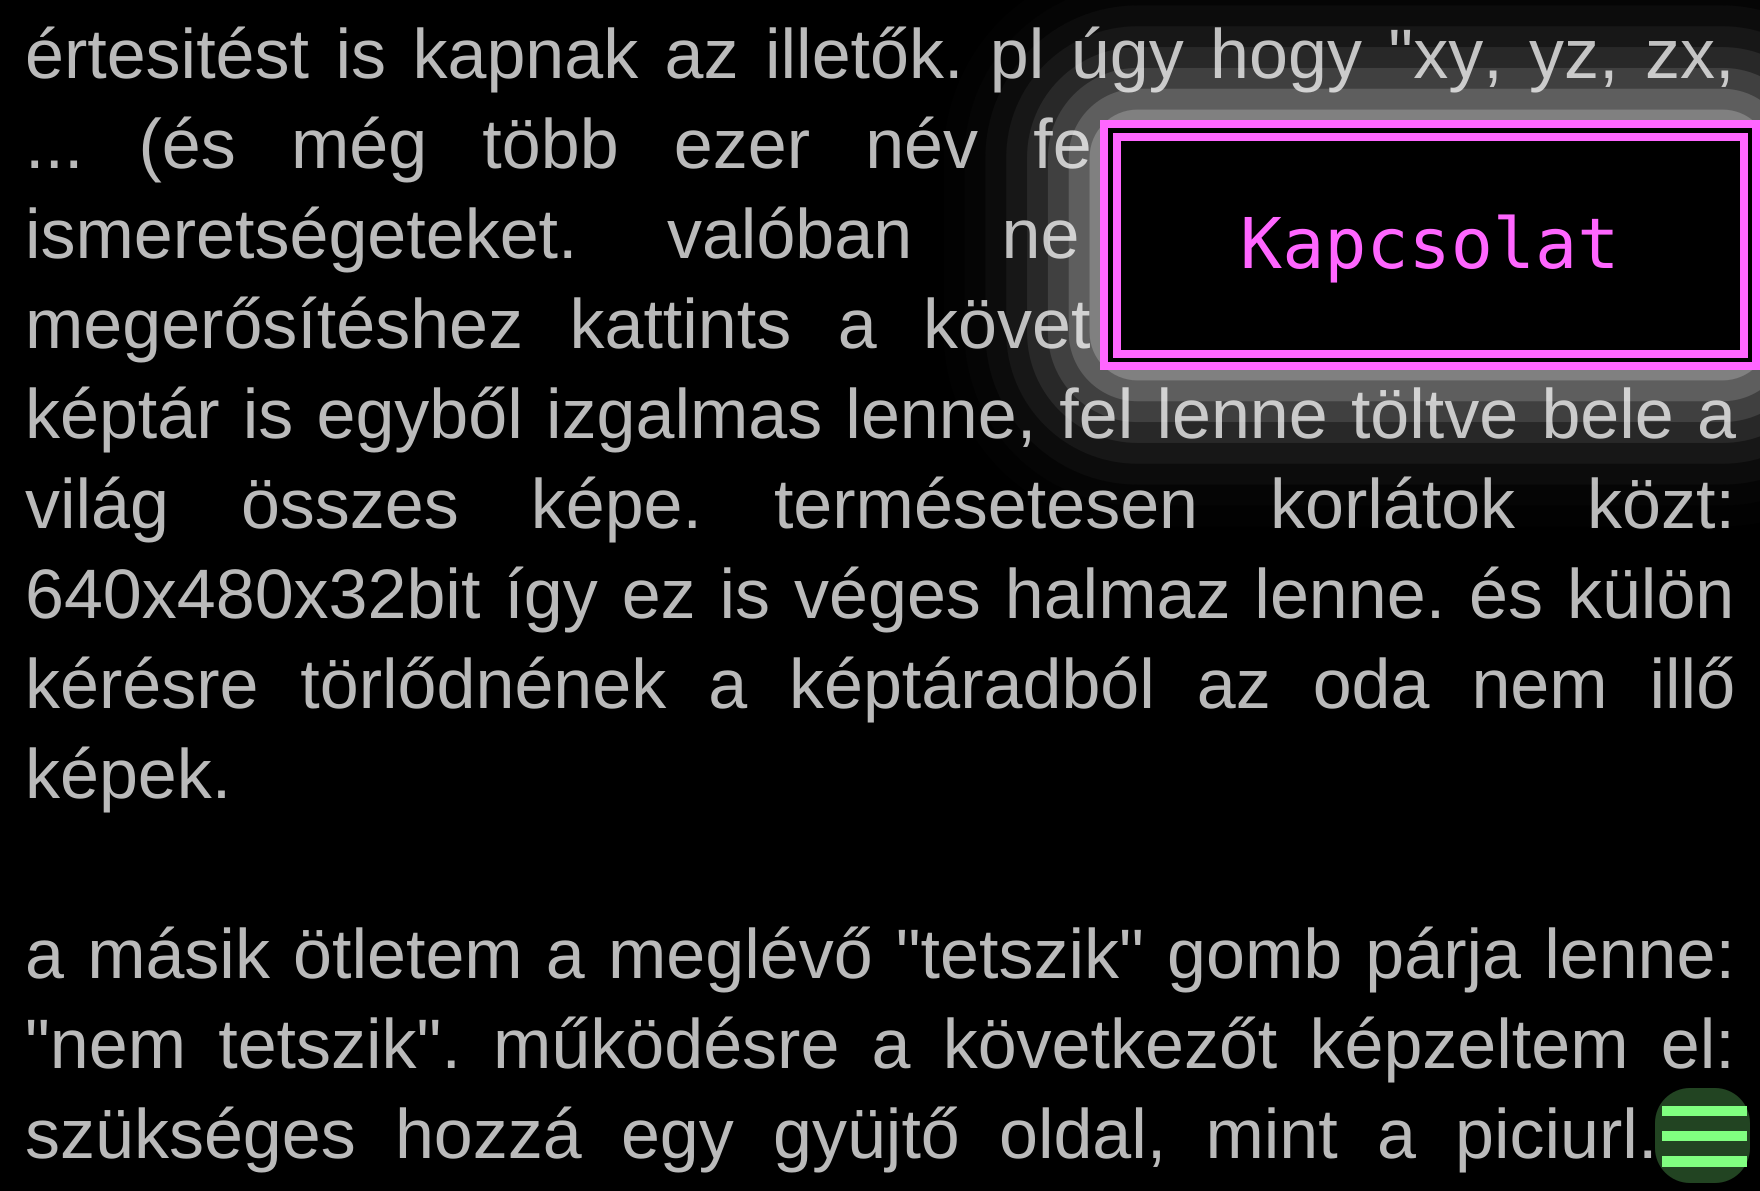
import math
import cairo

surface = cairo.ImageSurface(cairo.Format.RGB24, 1760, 1191)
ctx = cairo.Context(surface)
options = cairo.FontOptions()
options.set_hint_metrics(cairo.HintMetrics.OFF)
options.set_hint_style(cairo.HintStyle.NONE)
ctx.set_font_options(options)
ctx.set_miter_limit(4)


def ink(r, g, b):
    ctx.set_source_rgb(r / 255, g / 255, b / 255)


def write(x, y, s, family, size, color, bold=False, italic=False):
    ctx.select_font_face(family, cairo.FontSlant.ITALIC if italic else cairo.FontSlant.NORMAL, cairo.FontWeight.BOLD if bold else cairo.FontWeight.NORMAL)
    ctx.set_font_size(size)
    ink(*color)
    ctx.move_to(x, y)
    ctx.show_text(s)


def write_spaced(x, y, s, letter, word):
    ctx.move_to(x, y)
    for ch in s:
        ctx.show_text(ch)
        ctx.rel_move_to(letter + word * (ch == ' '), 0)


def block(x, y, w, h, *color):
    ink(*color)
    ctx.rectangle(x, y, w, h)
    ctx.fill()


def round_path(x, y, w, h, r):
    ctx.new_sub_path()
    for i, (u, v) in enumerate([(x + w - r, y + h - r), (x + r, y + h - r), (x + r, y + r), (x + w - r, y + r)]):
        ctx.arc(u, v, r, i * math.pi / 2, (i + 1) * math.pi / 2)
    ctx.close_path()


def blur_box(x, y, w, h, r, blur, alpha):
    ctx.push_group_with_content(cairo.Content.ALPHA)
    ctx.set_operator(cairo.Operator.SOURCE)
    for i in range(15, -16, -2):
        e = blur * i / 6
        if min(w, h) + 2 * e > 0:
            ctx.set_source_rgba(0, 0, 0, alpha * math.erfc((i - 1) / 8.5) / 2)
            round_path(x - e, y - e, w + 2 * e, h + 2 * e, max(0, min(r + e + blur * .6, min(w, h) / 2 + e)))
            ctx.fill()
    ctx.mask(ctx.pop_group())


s1 = dict(family="Liberation Sans", size=70, color=(186, 186, 186))
s2 = dict(family="DejaVu Sans Mono", size=70, color=(255, 102, 255))

ink(0, 0, 0)
ctx.paint()
ctx.select_font_face("Liberation Sans")
ctx.set_font_size(70)
ink(186, 186, 186)
write_spaced(25, 78, "értesitést is kapnak az illetők. pl úgy hogy \"xy, yz, zx,", 0, 7)
write_spaced(25, 168, "... (és még több ezer név fe", 0, 35.75)
write_spaced(25, 258, "ismeretségeteket. valóban ne", 0, 70)
write_spaced(25, 348, "megerősítéshez kattints a követ", 0, 27)
write_spaced(25, 438, "képtár is egyből izgalmas lenne, fel lenne töltve bele a", 0, 3.75)
write_spaced(25, 528, "világ összes képe. termésetesen korlátok közt:", 0, 52.5)
write_spaced(25, 618, "640x480x32bit így ez is véges halmaz lenne. és külön", 0, 4.5)
write_spaced(25, 708, "kérésre törlődnének a képtáradból az oda nem illő", 0, 22.5)
write(25, 798, "képek.", **s1)
write_spaced(25, 978, "a másik ötletem a meglévő \"tetszik\" gomb párja lenne:", 0, 3.75)
write_spaced(25, 1068, "\"nem tetszik\". működésre a következőt képzeltem el:", 0, 12.75)
write_spaced(25, 1158, "szükséges hozzá egy gyüjtő oldal, mint a piciurl.", 0, 19.75)
ink(34, 68, 34)
round_path(1655, 1088, 95, 95, 35)
ctx.fill()
block(1662, 1106, 85, 10, 128, 255, 128)
block(1662, 1131, 85, 10, 128, 255, 128)
block(1662, 1156, 85, 11, 128, 255, 128)
ink(255, 255, 255)
blur_box(1100, 120, 660, 250, 0, 62.5, 1)
ink(0, 0, 0)
ctx.rectangle(1104, 124, 652, 242)
ctx.fill_preserve()
ink(255, 102, 255)
ctx.set_line_width(8)
ctx.stroke()
ctx.rectangle(1117, 137, 627, 217)
ctx.stroke()
write(1240, 268, "Kapcsolat", **s2)
surface.write_to_png("screenshot.png")
